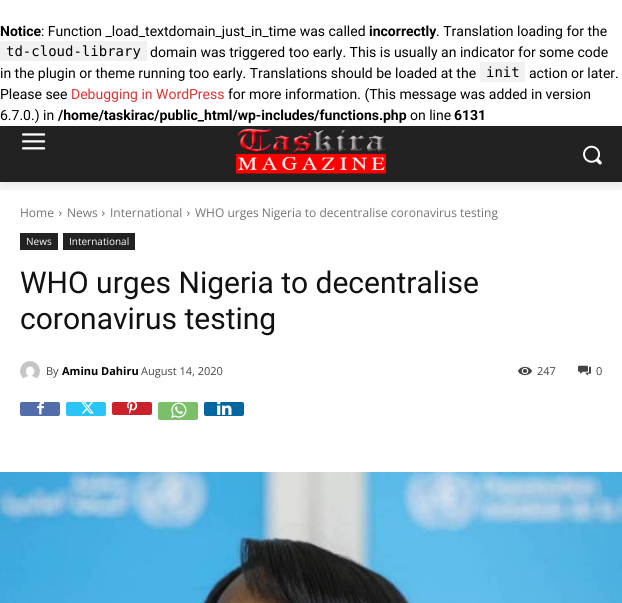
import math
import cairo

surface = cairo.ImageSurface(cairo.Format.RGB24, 622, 603)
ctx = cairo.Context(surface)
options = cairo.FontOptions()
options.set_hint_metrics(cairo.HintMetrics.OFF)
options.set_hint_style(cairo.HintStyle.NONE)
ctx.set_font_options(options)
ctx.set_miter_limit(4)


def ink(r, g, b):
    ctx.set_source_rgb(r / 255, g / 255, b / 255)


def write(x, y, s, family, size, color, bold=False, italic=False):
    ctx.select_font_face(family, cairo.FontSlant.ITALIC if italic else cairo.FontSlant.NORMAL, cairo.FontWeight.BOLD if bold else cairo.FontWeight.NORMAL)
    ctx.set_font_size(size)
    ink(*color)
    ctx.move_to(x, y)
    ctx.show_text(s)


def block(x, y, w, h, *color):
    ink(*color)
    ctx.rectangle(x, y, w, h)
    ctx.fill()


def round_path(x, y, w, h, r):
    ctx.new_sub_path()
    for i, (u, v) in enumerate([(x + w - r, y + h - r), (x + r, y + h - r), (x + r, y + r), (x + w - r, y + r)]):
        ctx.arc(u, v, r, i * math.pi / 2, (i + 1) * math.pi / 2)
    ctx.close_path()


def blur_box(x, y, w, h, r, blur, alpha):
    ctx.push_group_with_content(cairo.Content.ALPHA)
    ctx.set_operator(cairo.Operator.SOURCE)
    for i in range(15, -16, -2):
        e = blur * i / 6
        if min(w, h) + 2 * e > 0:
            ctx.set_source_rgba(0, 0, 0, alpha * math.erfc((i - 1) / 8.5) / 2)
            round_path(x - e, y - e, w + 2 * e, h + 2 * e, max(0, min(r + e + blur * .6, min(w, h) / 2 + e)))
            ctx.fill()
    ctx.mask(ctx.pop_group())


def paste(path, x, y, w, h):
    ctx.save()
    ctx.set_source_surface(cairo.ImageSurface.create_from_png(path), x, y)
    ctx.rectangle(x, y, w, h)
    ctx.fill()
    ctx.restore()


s1 = dict(family="Roboto", size=14, color=(0, 0, 0), bold=True)
s2 = dict(family="Roboto", size=14, color=(0, 0, 0))
s3 = dict(family="DejaVu Sans Mono", size=14, color=(0, 0, 0))
s4 = dict(family="Roboto", size=14, color=(221, 51, 51))
s5 = dict(family="Open Sans", size=12, color=(116, 116, 116))
s6 = dict(family="Open Sans", size=10, color=(255, 255, 255))
s7 = dict(family="Roboto", size=30, color=(17, 17, 17))
s8 = dict(family="Open Sans", size=11, color=(68, 68, 68))
s9 = dict(family="Open Sans", size=11, color=(0, 0, 0), bold=True)

ink(255, 255, 255)
ctx.paint()
write(0, 36, "Notice", **s1)
write(41, 36, ": Function _load_textdomain_just_in_time was called", **s2)
write(369, 36, "incorrectly", **s1)
write(436, 36, ". Translation loading for the", **s2)
block(0, 41, 147, 20, 241, 241, 241)
write(6, 56, "td-cloud-library", **s3)
write(150, 57, "domain was triggered too early. This is usually an indicator for some code", **s2)
write(0, 78, "in the plugin or theme running too early. Translations should be loaded at the", **s2)
block(480, 62, 45, 20, 241, 241, 241)
write(486, 77, "init", **s3)
write(529, 78, "action or later.", **s2)
write(0, 99, "Please see", **s2)
write(71, 99, "Debugging in WordPress", **s4)
write(228, 99, "for more information. (This message was added in version", **s2)
write(0, 120, "6.7.0.) in", **s2)
write(58, 120, "/home/taskirac/public_html/wp-includes/functions.php", **s1)
write(410, 120, "on line", **s2)
write(454, 120, "6131", **s1)
block(0, 126, 622, 56, 34, 34, 34)
paste("pic1.png", 22, 133, 24, 17)
paste("pic2.png", 236, 128, 150, 46)
paste("pic3.png", 583, 145, 19, 20)
ctx.save()
ctx.rectangle(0, 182, 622, 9)
ctx.clip()
ink(0, 0, 0)
blur_box(0, 132, 622, 56, 0, 4, 0.08)
ctx.restore()
write(20, 217, "Home", **s5)
paste("pic4.png", 59, 211, 3, 5)
write(67, 217, "News", **s5)
paste("pic4.png", 102, 211, 3, 5)
write(110, 217, "International", **s5)
paste("pic4.png", 187, 211, 3, 5)
write(195, 217, "WHO urges Nigeria to decentralise coronavirus testing", **s5)
block(20, 233, 38, 17, 34, 34, 34)
write(26, 245, "News", **s6)
block(63, 233, 72, 17, 34, 34, 34)
write(69, 245, "International", **s6)
write(20, 293, "WHO urges Nigeria to decentralise", **s7)
write(20, 329, "coronavirus testing", **s7)
paste("pic5.png", 20, 361, 20, 18)
write(46, 375, "By", **s8)
write(62, 375, "Aminu Dahiru", **s9)
write(141, 375, "August 14, 2020", **s8)
paste("pic6.png", 518, 366, 14, 10)
write(537, 375, "247", **s8)
paste("pic7.png", 578, 365, 13, 11)
write(596, 375, "0", **s8)
ink(81, 110, 171)
round_path(20, 402, 40, 14, 2)
ctx.fill()
paste("pic8.png", 37, 402, 7, 13)
ink(41, 197, 246)
round_path(66, 402, 40, 14, 2)
ctx.fill()
paste("pic9.png", 81, 402, 13, 12)
ink(202, 33, 42)
round_path(112, 402, 40, 13, 2)
ctx.fill()
paste("pic10.png", 127, 402, 11, 12)
ink(123, 191, 106)
round_path(158, 402, 40, 18, 2)
ctx.fill()
paste("pic11.png", 171, 402, 16, 16)
ink(2, 102, 160)
round_path(204, 402, 40, 14, 2)
ctx.fill()
paste("pic12.png", 217, 402, 15, 13)
paste("pic13.png", 0, 472, 622, 131)
surface.write_to_png("screenshot.png")
